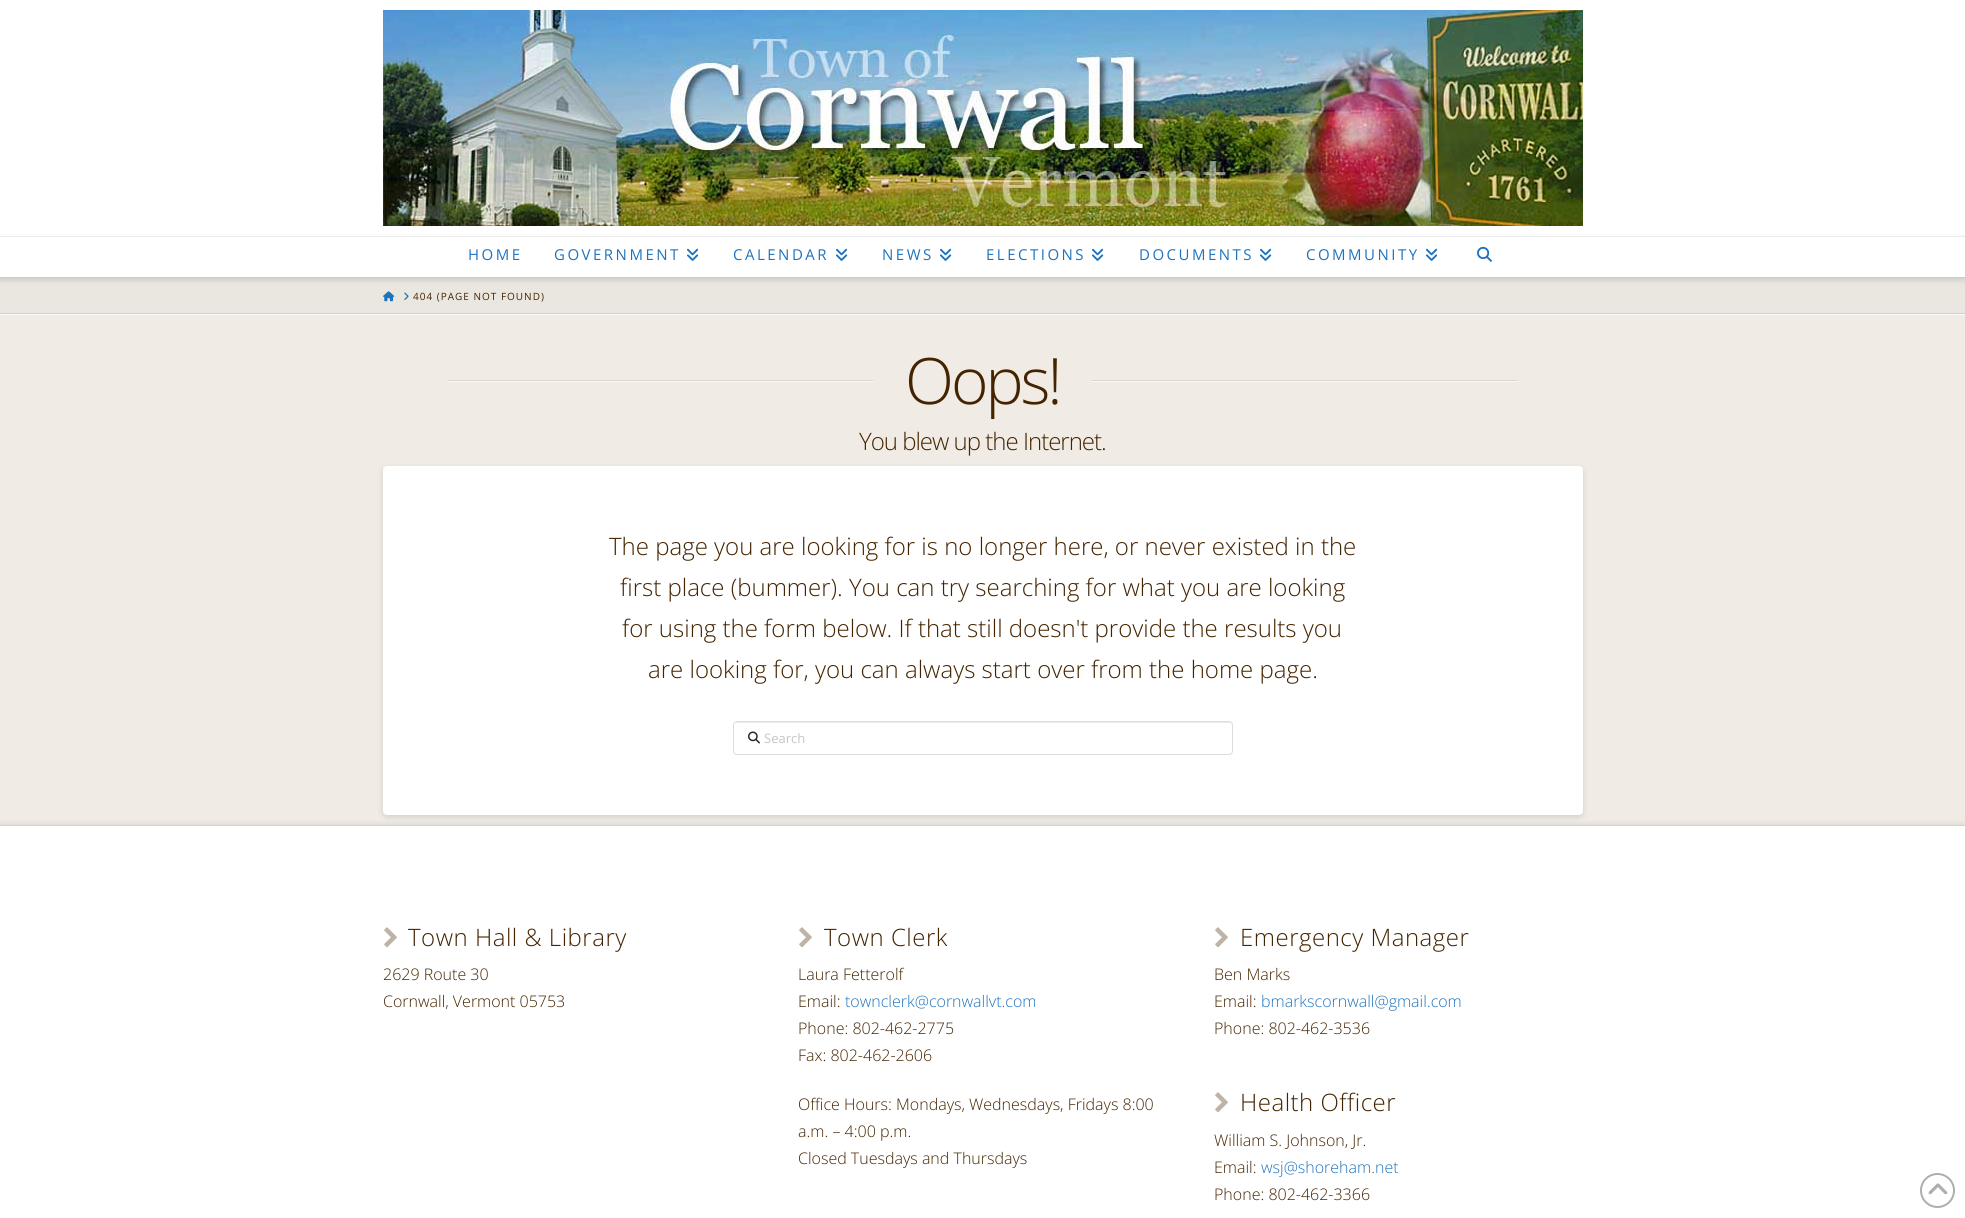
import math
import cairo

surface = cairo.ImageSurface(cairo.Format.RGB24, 1965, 1218)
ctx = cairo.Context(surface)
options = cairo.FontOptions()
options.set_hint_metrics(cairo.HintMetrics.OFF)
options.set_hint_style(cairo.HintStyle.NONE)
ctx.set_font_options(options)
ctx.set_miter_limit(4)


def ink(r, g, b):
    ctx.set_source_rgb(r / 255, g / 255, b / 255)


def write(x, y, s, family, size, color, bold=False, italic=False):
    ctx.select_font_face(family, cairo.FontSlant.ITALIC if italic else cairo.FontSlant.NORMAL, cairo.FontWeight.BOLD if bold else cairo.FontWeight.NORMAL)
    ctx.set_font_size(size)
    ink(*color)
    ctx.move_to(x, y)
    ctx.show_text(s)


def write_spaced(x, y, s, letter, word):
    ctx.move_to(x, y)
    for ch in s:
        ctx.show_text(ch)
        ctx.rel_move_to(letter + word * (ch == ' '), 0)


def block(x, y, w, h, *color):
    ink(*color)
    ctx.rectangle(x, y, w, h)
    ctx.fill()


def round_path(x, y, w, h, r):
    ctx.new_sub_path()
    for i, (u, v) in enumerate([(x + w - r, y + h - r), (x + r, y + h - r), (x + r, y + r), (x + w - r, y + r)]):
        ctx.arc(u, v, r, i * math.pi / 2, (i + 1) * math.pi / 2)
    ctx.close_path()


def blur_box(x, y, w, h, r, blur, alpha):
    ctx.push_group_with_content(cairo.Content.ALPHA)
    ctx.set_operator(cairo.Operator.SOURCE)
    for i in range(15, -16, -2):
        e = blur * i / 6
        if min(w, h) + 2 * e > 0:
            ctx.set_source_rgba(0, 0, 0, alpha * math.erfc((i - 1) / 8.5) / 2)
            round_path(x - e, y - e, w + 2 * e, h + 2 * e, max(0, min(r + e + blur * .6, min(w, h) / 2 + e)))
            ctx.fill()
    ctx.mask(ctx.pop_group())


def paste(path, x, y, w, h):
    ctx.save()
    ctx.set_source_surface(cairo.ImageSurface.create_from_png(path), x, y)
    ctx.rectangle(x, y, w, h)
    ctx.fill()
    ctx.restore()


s1 = dict(family="Open Sans Light", size=24, color=(68, 36, 0))
s2 = dict(family="Open Sans", size=13, color=(197, 197, 197))
s3 = dict(family="Open Sans Light", size=16, color=(68, 36, 0))
s4 = dict(family="Open Sans Light", size=16, color=(30, 115, 190))

ink(240, 236, 229)
ctx.paint()
block(0, 0, 1965, 236, 255, 255, 255)
block(0, 236, 1965, 1, 242, 242, 242)
paste("pic1.png", 383, 10, 1200, 216)
block(0, 278, 1965, 35, 234, 230, 224)
ink(0, 0, 0)
blur_box(0, 239, 1965, 41, 0, 3, 0.13)
block(0, 237, 1965, 40, 255, 255, 255)
block(0, 277, 1965, 1, 204, 204, 204)
ctx.select_font_face("Open Sans")
ctx.set_font_size(15)
ink(30, 115, 190)
write_spaced(468, 260, "HOME", 2.5, 0)
write_spaced(554, 260, "GOVERNMENT", 2.5, 0)
paste("pic2.png", 687, 248, 12, 13)
write_spaced(733, 260, "CALENDAR", 2.5, 0)
paste("pic2.png", 836, 248, 12, 13)
write_spaced(882, 260, "NEWS", 2.5, 0)
paste("pic2.png", 940, 248, 12, 13)
write_spaced(986, 260, "ELECTIONS", 2.5, 0)
paste("pic2.png", 1092, 248, 12, 13)
write_spaced(1139, 260, "DOCUMENTS", 2.5, 0)
paste("pic2.png", 1260, 248, 12, 13)
write_spaced(1306, 260, "COMMUNITY", 2.5, 0)
paste("pic2.png", 1426, 248, 12, 13)
paste("pic3.png", 1477, 246, 15, 16)
block(0, 314, 1965, 1, 251, 250, 248)
block(0, 313, 1965, 1, 211, 207, 202)
paste("pic4.png", 383, 291, 12, 11)
paste("pic5.png", 404, 292, 5, 8)
ctx.set_font_size(10)
ink(68, 36, 0)
write_spaced(413, 300, "404 (PAGE NOT FOUND)", 1, 0)
block(448, 381, 425, 1, 252, 251, 250)
block(448, 380, 425, 1, 216, 212, 206)
ctx.select_font_face("Open Sans Light")
ctx.set_font_size(64)
ink(68, 36, 0)
write_spaced(905, 404, "Oops!", -3, 0)
block(1092, 381, 425, 1, 252, 251, 250)
block(1092, 380, 425, 1, 216, 212, 206)
ctx.set_font_size(24)
ink(68, 36, 0)
write_spaced(859, 450, "You blew up the Internet.", -1, 0)
ink(0, 0, 0)
blur_box(383, 468, 1200, 349, 4, 3, 0.13)
ink(255, 255, 255)
round_path(383, 466, 1200, 349, 4)
ctx.fill()
write(609, 555, "The page you are looking for is no longer here, or never existed in the", **s1)
write(620, 596, "first place (bummer). You can try searching for what you are looking", **s1)
write(622, 637, "for using the form below. If that still doesn't provide the results you", **s1)
write(648, 678, "are looking for, you can always start over from the home page.", **s1)
ink(236, 236, 236)
ctx.new_path()
ctx.move_to(737, 723)
ctx.line_to(1229, 723)
ctx.curve_to(1231, 723, 1232, 724, 1232, 726)
ctx.curve_to(1232, 724, 1231, 722, 1229, 722)
ctx.line_to(737, 722)
ctx.curve_to(735, 722, 734, 724, 734, 726)
ctx.curve_to(734, 724, 735, 723, 737, 723)
ctx.close_path()
ctx.fill()
round_path(733.5, 721.5, 499, 33, 3.5)
ink(221, 221, 221)
ctx.set_line_width(1)
ctx.stroke()
paste("pic6.png", 748, 731, 12, 13)
write(764, 743, "Search", **s2)
ink(0, 0, 0)
blur_box(0, 823, 1965, 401, 0, 2, 0.07)
block(0, 826, 1965, 392, 255, 255, 255)
block(0, 825, 1965, 1, 212, 212, 212)
paste("pic7.png", 384, 927, 13, 21)
ctx.select_font_face("Open Sans Light")
ctx.set_font_size(24)
ink(68, 36, 0)
write_spaced(408, 946, "Town Hall & Library", 0.5, 0)
write(383, 980, "2629 Route 30", **s3)
write(383, 1007, "Cornwall, Vermont 05753", **s3)
paste("pic7.png", 799, 927, 13, 21)
ctx.set_font_size(24)
write_spaced(824, 946, "Town Clerk", 0.5, 0)
write(798, 980, "Laura Fetterolf", **s3)
write(798, 1007, "Email:", **s3)
write(845, 1007, "townclerk@cornwallvt.com", **s4)
write(798, 1034, "Phone: 802-462-2775", **s3)
write(798, 1061, "Fax: 802-462-2606", **s3)
write(798, 1110, "Office Hours: Mondays, Wednesdays, Fridays 8:00", **s3)
write(798, 1137, "a.m. – 4:00 p.m.", **s3)
write(798, 1164, "Closed Tuesdays and Thursdays", **s3)
paste("pic7.png", 1215, 927, 13, 21)
ctx.set_font_size(24)
write_spaced(1240, 946, "Emergency Manager", 0.5, 0)
write(1214, 980, "Ben Marks", **s3)
write(1214, 1007, "Email:", **s3)
write(1261, 1007, "bmarkscornwall@gmail.com", **s4)
write(1214, 1034, "Phone: 802-462-3536", **s3)
paste("pic7.png", 1215, 1092, 13, 21)
ctx.set_font_size(24)
write_spaced(1240, 1111, "Health Officer", 0.5, 0)
write(1214, 1146, "William S. Johnson, Jr.", **s3)
write(1214, 1173, "Email:", **s3)
write(1261, 1173, "wsj@shoreham.net", **s4)
write(1214, 1200, "Phone: 802-462-3366", **s3)
ctx.new_path()
ctx.arc(1937.5, 1190.5, 16.5, 0, 2 * math.pi)
ink(174, 174, 174)
ctx.set_line_width(2)
ctx.stroke()
paste("pic8.png", 1928, 1183, 20, 12)
surface.write_to_png("screenshot.png")
